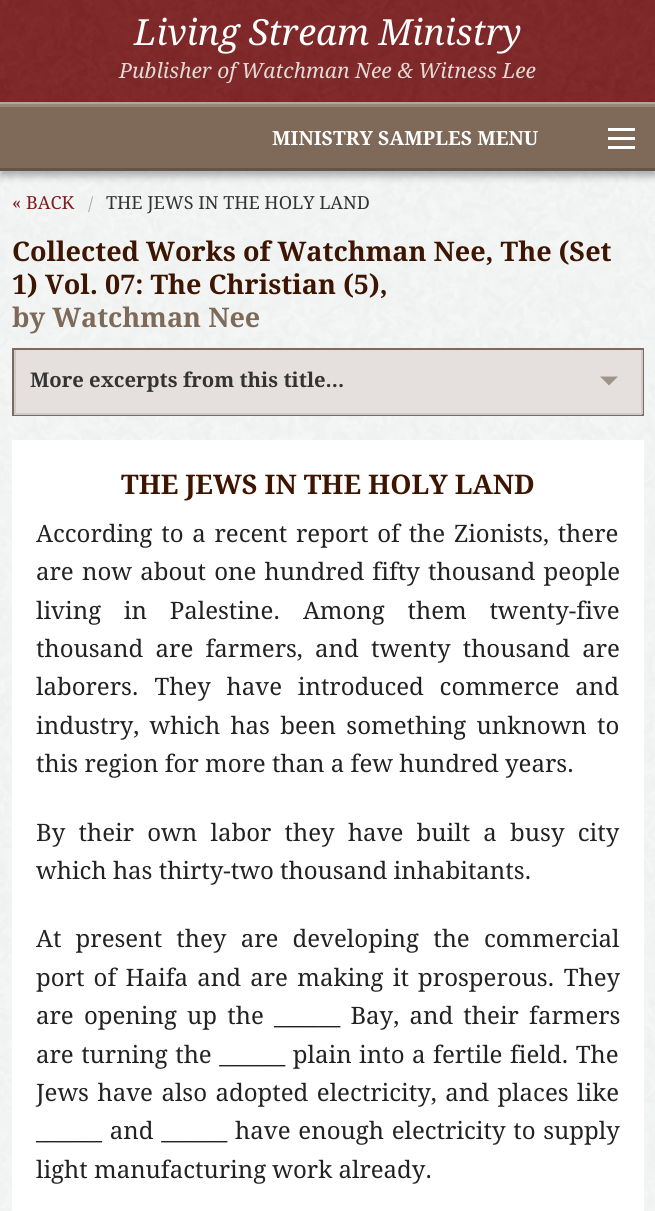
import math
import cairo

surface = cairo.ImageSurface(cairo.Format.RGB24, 655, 1211)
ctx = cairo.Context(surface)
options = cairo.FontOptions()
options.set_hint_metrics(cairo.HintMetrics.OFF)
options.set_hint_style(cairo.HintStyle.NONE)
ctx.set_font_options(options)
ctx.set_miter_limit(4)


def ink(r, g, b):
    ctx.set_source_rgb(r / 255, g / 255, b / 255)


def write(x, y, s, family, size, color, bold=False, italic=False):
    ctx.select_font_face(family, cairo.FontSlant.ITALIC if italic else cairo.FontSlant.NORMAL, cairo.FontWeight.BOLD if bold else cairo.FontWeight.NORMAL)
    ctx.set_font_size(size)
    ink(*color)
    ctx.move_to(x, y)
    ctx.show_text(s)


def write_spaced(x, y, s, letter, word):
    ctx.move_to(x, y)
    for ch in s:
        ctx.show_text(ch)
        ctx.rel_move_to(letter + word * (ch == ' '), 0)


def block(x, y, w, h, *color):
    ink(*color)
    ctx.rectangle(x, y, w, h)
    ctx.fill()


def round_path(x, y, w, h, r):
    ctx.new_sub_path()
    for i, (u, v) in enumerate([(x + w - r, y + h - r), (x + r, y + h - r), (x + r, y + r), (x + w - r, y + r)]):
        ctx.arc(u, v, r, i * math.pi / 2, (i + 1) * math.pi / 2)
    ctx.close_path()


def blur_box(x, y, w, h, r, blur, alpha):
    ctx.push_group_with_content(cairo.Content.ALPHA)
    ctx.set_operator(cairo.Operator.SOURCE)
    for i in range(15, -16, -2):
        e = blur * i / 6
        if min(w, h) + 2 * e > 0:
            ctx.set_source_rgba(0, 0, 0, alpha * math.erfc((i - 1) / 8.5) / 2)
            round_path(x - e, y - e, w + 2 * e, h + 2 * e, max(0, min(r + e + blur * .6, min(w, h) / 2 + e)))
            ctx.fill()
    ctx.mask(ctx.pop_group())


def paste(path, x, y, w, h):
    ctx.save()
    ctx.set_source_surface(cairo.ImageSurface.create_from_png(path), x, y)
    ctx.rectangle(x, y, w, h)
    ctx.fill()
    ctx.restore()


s1 = dict(family="Droid Serif", size=36, color=(255, 255, 255), italic=True)
s2 = dict(family="Droid Serif", size=21, color=(226, 218, 213), italic=True)
s3 = dict(family="Droid Serif", size=19.5, color=(255, 255, 255), bold=True)
s4 = dict(family="Droid Serif", size=18, color=(126, 30, 31))
s5 = dict(family="Droid Serif", size=18, color=(170, 170, 170))
s6 = dict(family="Droid Serif", size=18, color=(51, 51, 51))
s7 = dict(family="Droid Serif", size=27, color=(62, 21, 1), bold=True)
s8 = dict(family="Droid Serif", size=27, color=(127, 105, 89), bold=True)
s9 = dict(family="Droid Serif", size=20.25, color=(51, 51, 51), bold=True)
s10 = dict(family="Droid Serif", size=24, color=(34, 34, 34))

ink(255, 255, 255)
ctx.paint()
paste("pic1.png", 0, 171, 655, 1040)
paste("pic2.png", 0, 0, 655, 102)
write(134, 45, "Living Stream Ministry", **s1)
write(119, 78, "Publisher of Watchman Nee & Witness Lee", **s2)
ink(0, 0, 0)
blur_box(0, 107, 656, 69, 0, 4, 0.3)
block(0, 102, 655, 2, 178, 166, 155)
block(0, 107, 655, 61, 127, 106, 89)
block(0, 168, 655, 3, 102, 85, 71)
block(0, 104, 655, 3, 153, 136, 122)
block(608, 146, 27, 3, 255, 255, 255)
block(608, 137, 27, 3, 255, 255, 255)
block(608, 128, 27, 3, 255, 255, 255)
write(272, 145, "MINISTRY SAMPLES MENU", **s3)
write(12, 209, "« BACK", **s4)
write(88, 210, "/", **s5)
write(106, 209, "THE JEWS IN THE HOLY LAND", **s6)
write(12, 261, "Collected Works of Watchman Nee, The (Set", **s7)
write(12, 294, "1) Vol. 07: The Christian (5),", **s7)
write(12, 327, "by Watchman Nee", **s8)
ctx.rectangle(13, 349, 630, 66)
ink(127, 106, 89)
ctx.stroke()
block(16, 350, 625, 63, 229, 224, 221)
block(641, 350, 2, 64, 204, 204, 204)
block(14, 413, 628, 2, 204, 204, 204)
block(14, 350, 2, 64, 204, 204, 204)
write(30, 387, "More excerpts from this title...", **s9)
ink(157, 148, 140)
ctx.new_path()
ctx.move_to(600, 376.5)
ctx.line_to(618, 376.5)
ctx.line_to(609, 385.5)
ctx.close_path()
ctx.fill()
block(12, 440, 632, 771, 255, 255, 255)
write(121, 494, "THE JEWS IN THE HOLY LAND", **s7)
ctx.select_font_face("Droid Serif")
ctx.set_font_size(24)
ink(34, 34, 34)
write_spaced(36, 542, "According to a recent report of the Zionists, there", 0, 2.5)
write_spaced(36, 580, "are now about one hundred fifty thousand people", 0, 2)
write_spaced(36, 619, "living in Palestine. Among them twenty-five", 0, 16.5)
write_spaced(36, 657, "thousand are farmers, and twenty thousand are", 0, 6)
write_spaced(36, 695, "laborers. They have introduced commerce and", 0, 9.5)
write_spaced(36, 734, "industry, which has been something unknown to", 0, 4)
write(36, 772, "this region for more than a few hundred years.", **s10)
write_spaced(36, 841, "By their own labor they have built a busy city", 0, 7)
write(36, 879, "which has thirty-two thousand inhabitants.", **s10)
write_spaced(36, 947, "At present they are developing the commercial", 0, 8)
write_spaced(36, 986, "port of Haifa and are making it prosperous. They", 0, 3)
write_spaced(36, 1024, "are opening up the ______ Bay, and their farmers", 0, 4)
write_spaced(36, 1063, "are turning the ______ plain into a fertile field. The", 0, 1.25)
write_spaced(36, 1101, "Jews have also adopted electricity, and places like", 0, 2.25)
write_spaced(36, 1139, "______ and ______ have enough electricity to supply", 0, 1.5)
write(36, 1178, "light manufacturing work already.", **s10)
surface.write_to_png("screenshot.png")
